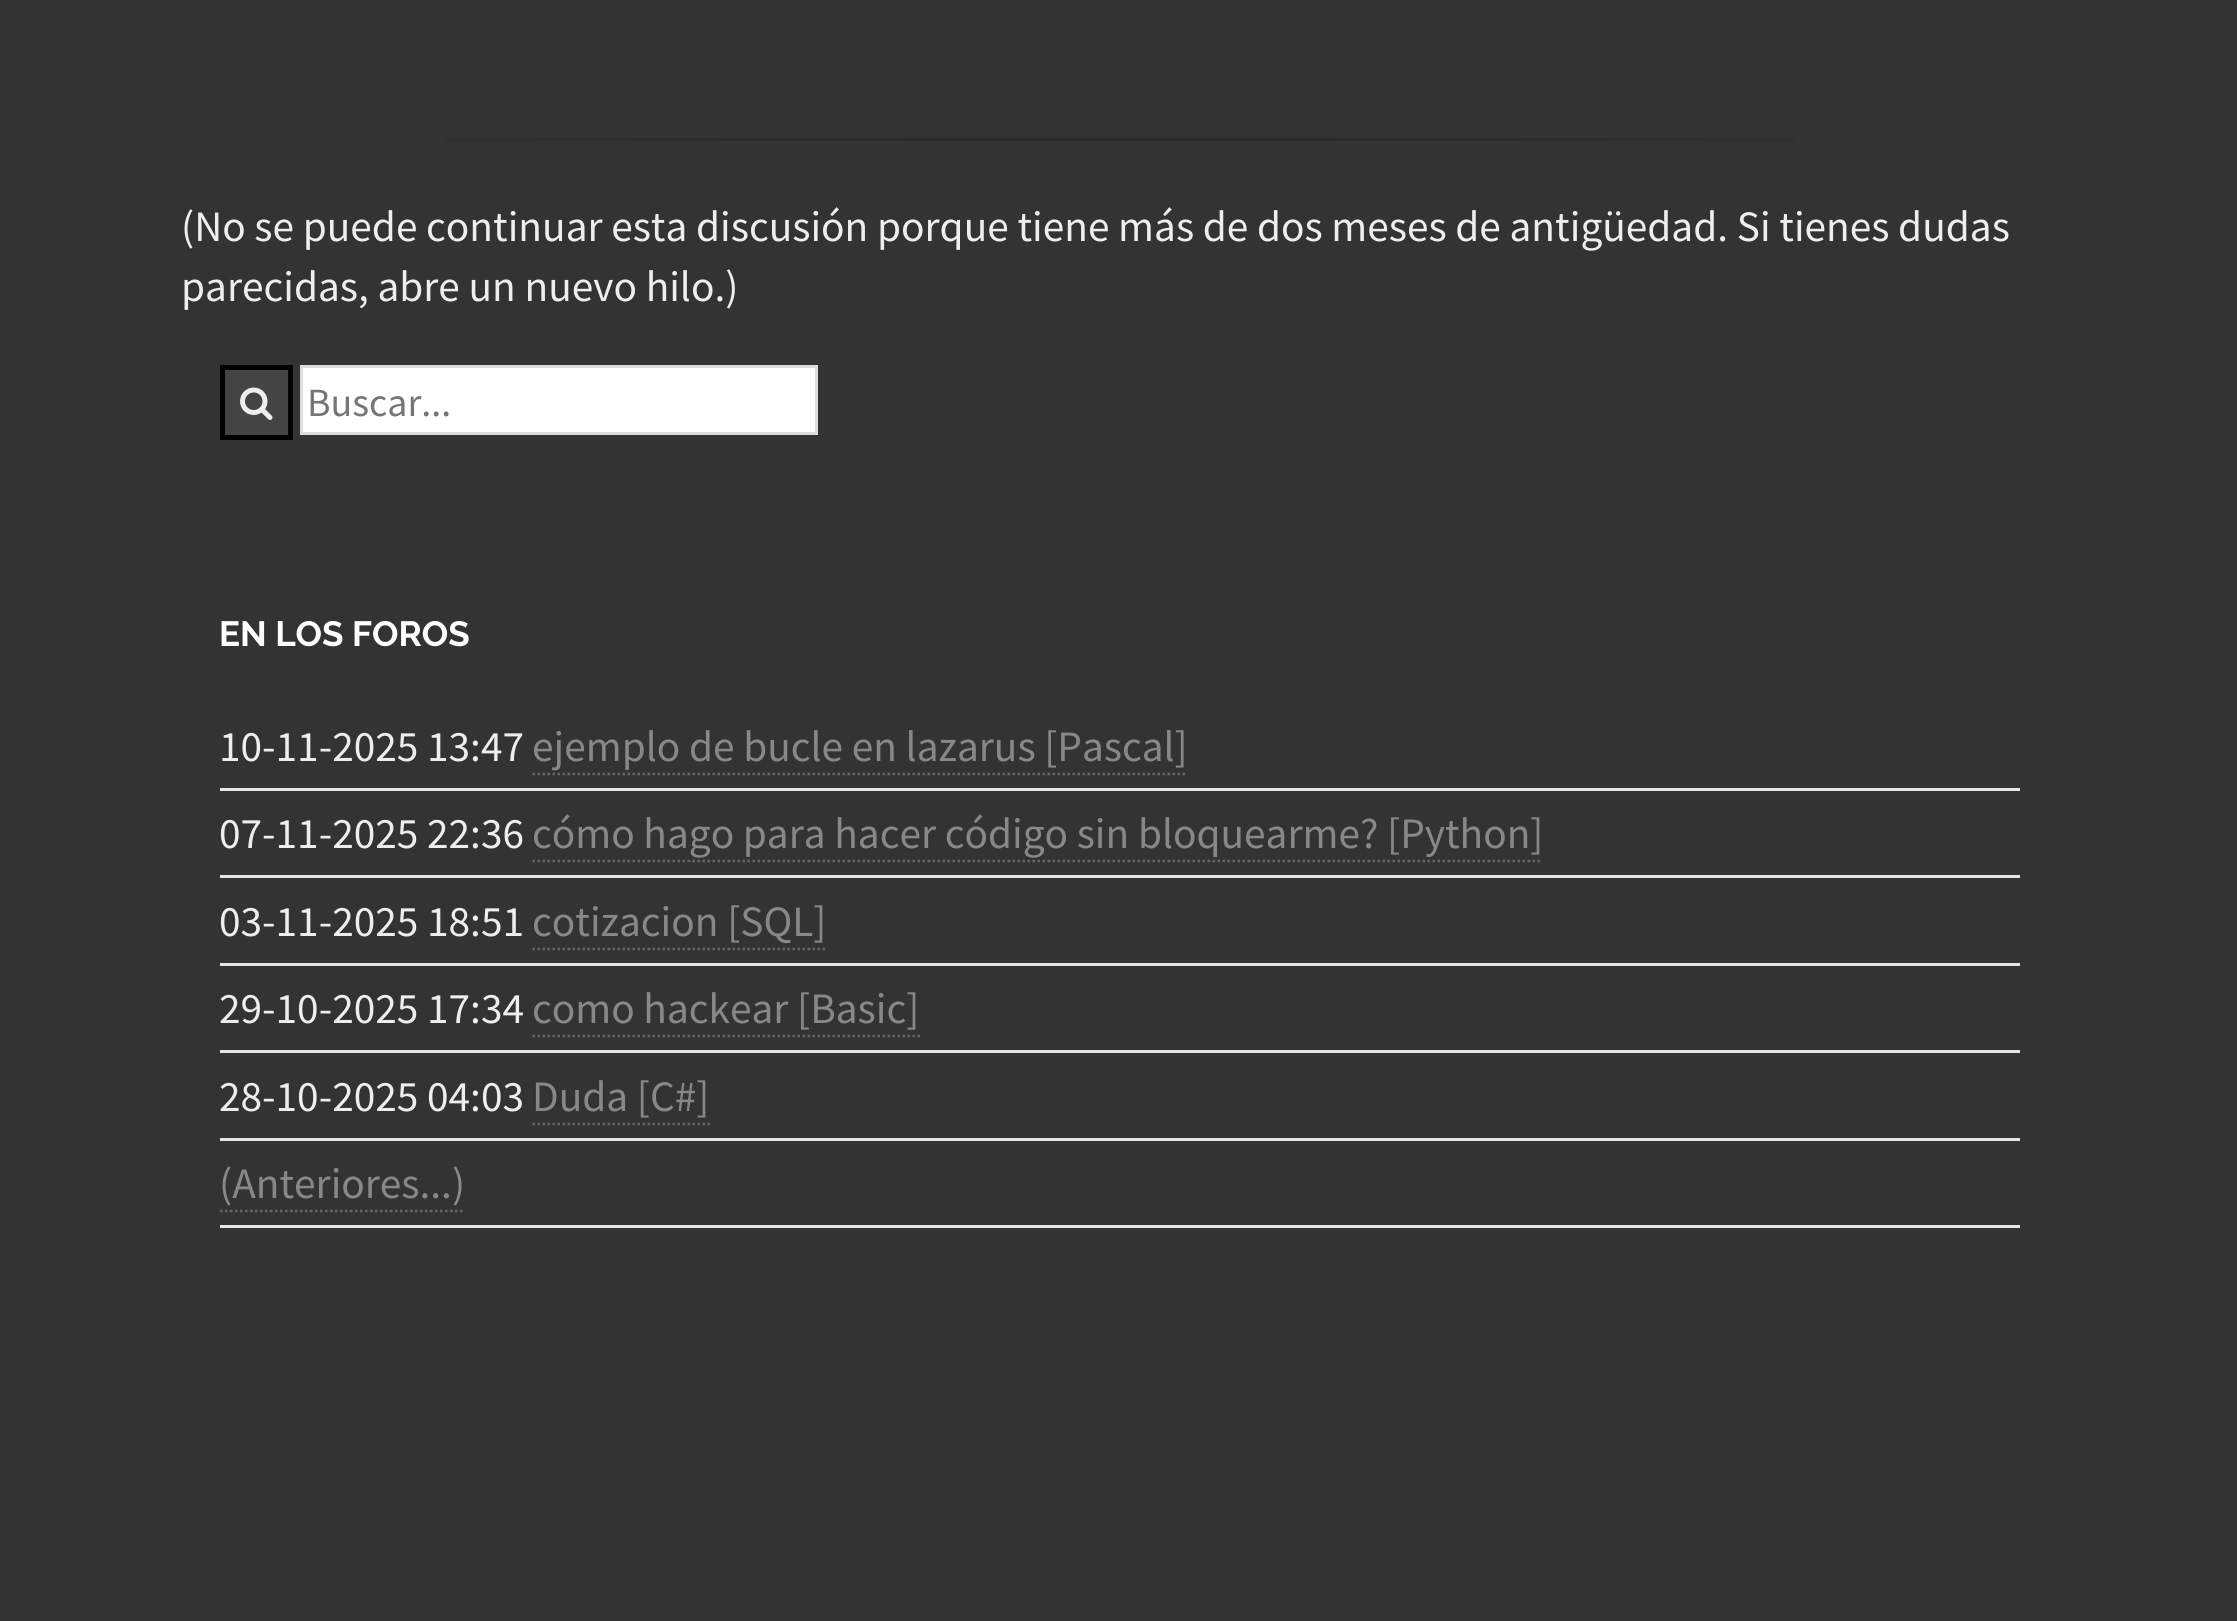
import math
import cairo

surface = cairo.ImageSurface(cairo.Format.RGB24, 2237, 1621)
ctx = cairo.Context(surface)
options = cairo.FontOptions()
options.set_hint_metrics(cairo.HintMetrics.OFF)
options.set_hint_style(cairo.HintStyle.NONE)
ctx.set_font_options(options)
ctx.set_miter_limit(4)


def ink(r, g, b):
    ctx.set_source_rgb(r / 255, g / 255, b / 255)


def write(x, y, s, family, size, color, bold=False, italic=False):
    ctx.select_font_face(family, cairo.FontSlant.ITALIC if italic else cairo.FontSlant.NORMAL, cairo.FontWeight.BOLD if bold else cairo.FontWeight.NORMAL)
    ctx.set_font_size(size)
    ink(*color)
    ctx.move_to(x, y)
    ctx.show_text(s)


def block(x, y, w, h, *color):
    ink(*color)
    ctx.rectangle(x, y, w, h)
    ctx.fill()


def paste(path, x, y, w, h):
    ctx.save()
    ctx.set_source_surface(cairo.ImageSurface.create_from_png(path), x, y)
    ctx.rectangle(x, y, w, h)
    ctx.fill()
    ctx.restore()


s1 = dict(family="Source Sans Pro", size=43.35, color=(238, 238, 238))
s2 = dict(family="Source Sans Pro", size=40, color=(117, 117, 117))
s3 = dict(family="Raleway", size=35, color=(255, 255, 255), bold=True)
s4 = dict(family="Source Sans Pro", size=43.35, color=(136, 136, 136))

ink(51, 51, 51)
ctx.paint()
gradient = cairo.LinearGradient(220, 139, 2020, 139)
gradient.add_color_stop_rgba(0, 0.2, 0.2, 0.2, 1)
gradient.add_color_stop_rgba(0.5, 0.161, 0.161, 0.161, 1)
gradient.add_color_stop_rgba(1, 0.2, 0.2, 0.2, 1)
ctx.set_source(gradient)
ctx.rectangle(445, 138, 1350, 3)
ctx.fill()
write(181, 241, "(No se puede continuar esta discusión porque tiene más de dos meses de antigüedad. Si tienes dudas", **s1)
write(181, 301, "parecidas, abre un nuevo hilo.)", **s1)
ink(68, 68, 68)
ctx.rectangle(222.5, 367.5, 68, 70)
ctx.fill_preserve()
ink(0, 0, 0)
ctx.set_line_width(5)
ctx.stroke()
paste("pic1.png", 240, 387, 33, 33)
ink(255, 255, 255)
ctx.rectangle(301.5, 366.5, 515, 67)
ctx.fill_preserve()
ink(221, 221, 221)
ctx.set_line_width(3)
ctx.stroke()
write(307, 416, "Buscar...", **s2)
write(219, 646, "EN LOS FOROS", **s3)
block(220, 788, 1800, 3, 229, 229, 229)
write(219, 761, "10-11-2025 13:47", **s1)
write(532, 761, "ejemplo de bucle en lazarus [Pascal]", **s4)
ctx.new_path()
ctx.move_to(532.5, 774)
ctx.line_to(1187.5, 774)
ink(102, 102, 102)
ctx.set_line_width(2.5)
ctx.set_dash([2.5, 2.5])
ctx.stroke()
block(220, 875, 1800, 3, 229, 229, 229)
write(219, 848, "07-11-2025 22:36", **s1)
write(532, 848, "cómo hago para hacer código sin bloquearme? [Python]", **s4)
ctx.new_path()
ctx.move_to(532.5, 861)
ctx.line_to(1542.5, 861)
ink(102, 102, 102)
ctx.stroke()
block(220, 963, 1800, 3, 229, 229, 229)
write(219, 936, "03-11-2025 18:51", **s1)
write(532, 936, "cotizacion [SQL]", **s4)
ctx.new_path()
ctx.move_to(532.5, 949)
ctx.line_to(827.5, 949)
ink(102, 102, 102)
ctx.stroke()
block(220, 1050, 1800, 3, 229, 229, 229)
write(219, 1023, "29-10-2025 17:34", **s1)
write(532, 1023, "como hackear [Basic]", **s4)
ctx.new_path()
ctx.move_to(532.5, 1036)
ctx.line_to(920, 1036)
ink(102, 102, 102)
ctx.stroke()
block(220, 1138, 1800, 3, 229, 229, 229)
write(219, 1111, "28-10-2025 04:03", **s1)
write(532, 1111, "Duda [C#]", **s4)
ctx.new_path()
ctx.move_to(532.5, 1124)
ctx.line_to(710, 1124)
ink(102, 102, 102)
ctx.stroke()
block(220, 1225, 1800, 3, 229, 229, 229)
write(219, 1198, "(Anteriores...)", **s4)
ctx.new_path()
ctx.move_to(220, 1211)
ctx.line_to(465, 1211)
ink(102, 102, 102)
ctx.stroke()
surface.write_to_png("screenshot.png")
